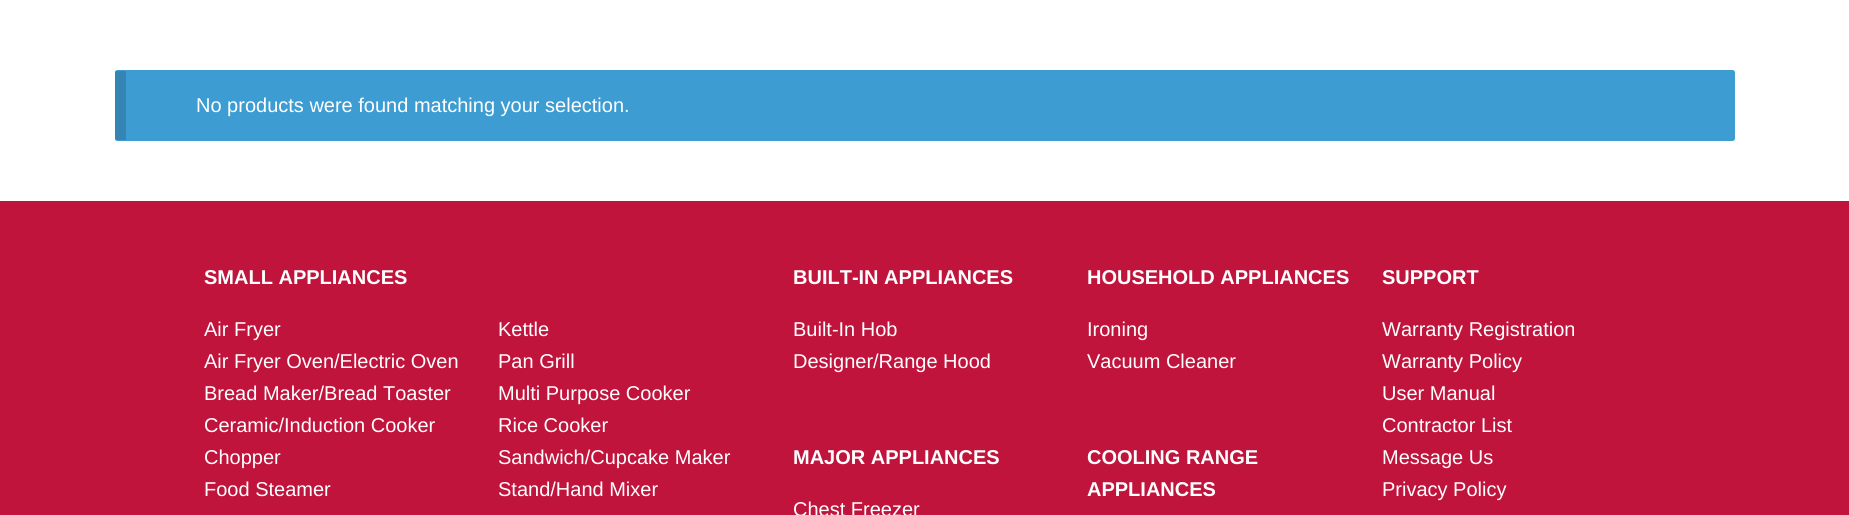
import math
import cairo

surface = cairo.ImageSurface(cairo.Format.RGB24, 1849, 515)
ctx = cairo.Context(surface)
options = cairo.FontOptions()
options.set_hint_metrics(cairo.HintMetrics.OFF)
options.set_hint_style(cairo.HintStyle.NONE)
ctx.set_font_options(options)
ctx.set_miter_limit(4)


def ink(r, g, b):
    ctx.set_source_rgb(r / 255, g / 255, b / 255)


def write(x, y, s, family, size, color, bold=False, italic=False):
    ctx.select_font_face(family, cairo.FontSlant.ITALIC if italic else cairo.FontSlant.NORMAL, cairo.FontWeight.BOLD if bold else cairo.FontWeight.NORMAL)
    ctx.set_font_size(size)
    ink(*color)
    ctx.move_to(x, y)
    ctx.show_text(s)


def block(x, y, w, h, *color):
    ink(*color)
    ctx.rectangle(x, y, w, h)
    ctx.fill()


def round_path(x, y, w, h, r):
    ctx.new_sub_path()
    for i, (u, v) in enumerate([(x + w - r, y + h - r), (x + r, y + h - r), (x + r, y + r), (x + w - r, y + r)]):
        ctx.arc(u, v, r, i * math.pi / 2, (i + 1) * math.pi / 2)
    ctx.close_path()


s1 = dict(family="Liberation Sans", size=20, color=(255, 255, 255))
s2 = dict(family="Liberation Sans", size=20, color=(255, 255, 255), bold=True)

ink(255, 255, 255)
ctx.paint()
ink(61, 156, 210)
round_path(115, 70, 1620, 71, 2.5)
ctx.fill()
ctx.set_source_rgba(0, 0, 0, 0.15)
ctx.rectangle(115, 71, 11, 69)
ctx.fill()
write(196, 112, "No products were found matching your selection.", **s1)
block(0, 201, 1849, 314, 192, 20, 60)
write(204, 284, "SMALL APPLIANCES", **s2)
write(204, 336, "Air Fryer", **s1)
write(204, 368, "Air Fryer Oven/Electric Oven", **s1)
write(204, 400, "Bread Maker/Bread Toaster", **s1)
write(204, 432, "Ceramic/Induction Cooker", **s1)
write(204, 464, "Chopper", **s1)
write(204, 496, "Food Steamer", **s1)
write(498, 336, "Kettle", **s1)
write(498, 368, "Pan Grill", **s1)
write(498, 400, "Multi Purpose Cooker", **s1)
write(498, 432, "Rice Cooker", **s1)
write(498, 464, "Sandwich/Cupcake Maker", **s1)
write(498, 496, "Stand/Hand Mixer", **s1)
write(793, 284, "BUILT-IN APPLIANCES", **s2)
write(793, 336, "Built-In Hob", **s1)
write(793, 368, "Designer/Range Hood", **s1)
write(793, 464, "MAJOR APPLIANCES", **s2)
write(793, 516, "Chest Freezer", **s1)
write(1087, 284, "HOUSEHOLD APPLIANCES", **s2)
write(1087, 336, "Ironing", **s1)
write(1087, 368, "Vacuum Cleaner", **s1)
write(1087, 464, "COOLING RANGE", **s2)
write(1087, 496, "APPLIANCES", **s2)
write(1382, 284, "SUPPORT", **s2)
write(1382, 336, "Warranty Registration", **s1)
write(1382, 368, "Warranty Policy", **s1)
write(1382, 400, "User Manual", **s1)
write(1382, 432, "Contractor List", **s1)
write(1382, 464, "Message Us", **s1)
write(1382, 496, "Privacy Policy", **s1)
surface.write_to_png("screenshot.png")
